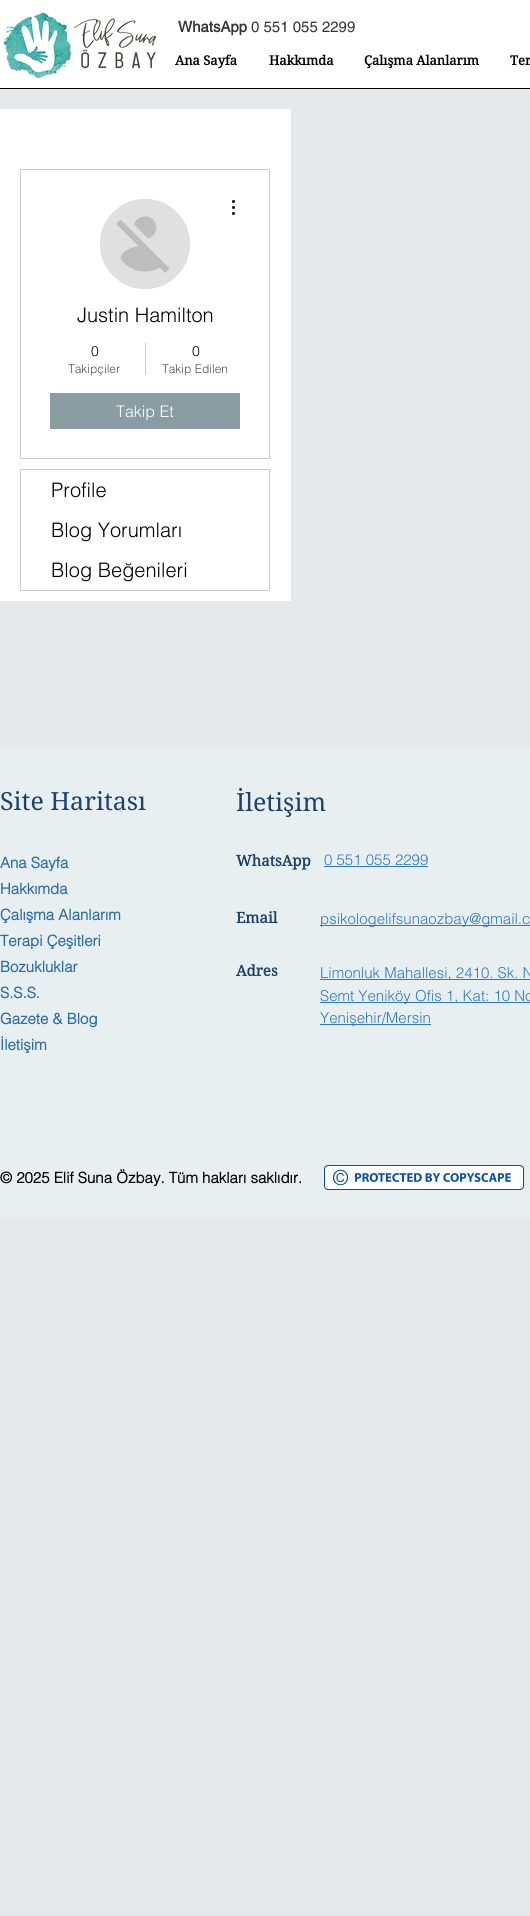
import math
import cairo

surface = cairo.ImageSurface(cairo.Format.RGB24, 530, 1916)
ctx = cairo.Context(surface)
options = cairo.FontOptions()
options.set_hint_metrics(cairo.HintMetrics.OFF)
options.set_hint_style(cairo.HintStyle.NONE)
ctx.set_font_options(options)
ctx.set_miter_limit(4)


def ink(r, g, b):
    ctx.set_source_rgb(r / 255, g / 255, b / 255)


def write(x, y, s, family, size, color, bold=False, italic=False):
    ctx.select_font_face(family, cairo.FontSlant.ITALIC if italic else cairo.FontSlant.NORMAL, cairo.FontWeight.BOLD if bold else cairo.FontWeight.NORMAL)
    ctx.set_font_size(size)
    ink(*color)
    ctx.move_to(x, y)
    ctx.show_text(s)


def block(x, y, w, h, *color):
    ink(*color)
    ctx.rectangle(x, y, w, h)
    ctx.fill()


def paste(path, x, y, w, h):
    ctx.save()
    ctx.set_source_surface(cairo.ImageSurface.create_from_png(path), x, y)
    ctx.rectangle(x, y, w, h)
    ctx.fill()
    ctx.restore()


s1 = dict(family="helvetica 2", size=15, color=(50, 50, 50), bold=True)
s2 = dict(family="helvetica", size=15, color=(50, 50, 50))
s3 = dict(family="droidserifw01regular", size=13, color=(0, 0, 0), bold=True)
s4 = dict(family="helvetica Light", size=20, color=(0, 0, 0))
s5 = dict(family="helvetica Light", size=14, color=(0, 0, 0))
s6 = dict(family="helvetica Light", size=12, color=(77, 77, 77))
s7 = dict(family="helvetica Light", size=16, color=(255, 255, 255))
s8 = dict(family="droidserifw01regular", size=25, color=(33, 64, 106))
s9 = dict(family="helvetica", size=15, color=(43, 108, 163), bold=True)
s10 = dict(family="droidserifw01regular", size=15, color=(33, 64, 106), bold=True)
s11 = dict(family="helvetica Light", size=15, color=(48, 120, 190))
s12 = dict(family="helvetica", size=15, color=(0, 0, 0), bold=True)

ink(230, 233, 235)
ctx.paint()
block(0, 0, 530, 88, 255, 255, 255)
block(0, 88, 530, 1, 0, 0, 0)
paste("pic1.png", 3, 12, 153, 66)
write(178, 32, "WhatsApp", **s1)
write(251, 32, "0 551 055 2299", **s2)
write(175, 65, "Ana Sayfa", **s3)
write(269, 65, "Hakkımda", **s3)
write(364, 65, "Çalışma Alanlarım", **s3)
write(510, 65, "Ter", **s3)
block(0, 109, 291, 492, 255, 255, 255)
ctx.rectangle(20.5, 169.5, 249, 289)
ink(204, 204, 204)
ctx.set_line_width(1)
ctx.stroke()
ink(216, 216, 216)
ctx.arc(145, 244, 45, 0, 2 * math.pi)
ctx.fill()
paste("pic2.png", 100, 199, 90, 90)
paste("pic3.png", 232, 200, 3, 15)
write(77, 322, "Justin Hamilton", **s4)
write(91, 356, "0", **s5)
write(68, 373, "Takipçiler", **s6)
block(145, 343, 1, 32, 204, 204, 204)
write(192, 356, "0", **s5)
write(162, 373, "Takip Edilen", **s6)
block(50, 393, 190, 36, 137, 157, 163)
write(116, 417, "Takip Et", **s7)
ctx.rectangle(20.5, 469.5, 249, 121)
ink(204, 204, 204)
ctx.stroke()
write(51, 497, "Profile", **s4)
write(51, 537, "Blog Yorumları", **s4)
write(51, 577, "Blog Beğenileri", **s4)
block(0, 749, 530, 468, 232, 239, 241)
write(0, 810, "Site Haritası", **s8)
write(236, 811, "İletişim", **s8)
write(0, 868, "Ana Sayfa", **s9)
write(0, 894, "Hakkımda", **s9)
write(0, 920, "Çalışma Alanlarım", **s9)
write(0, 946, "Terapi Çeşitleri", **s9)
write(0, 972, "Bozukluklar", **s9)
write(0, 998, "S.S.S.", **s9)
write(0, 1024, "Gazete & Blog", **s9)
write(0, 1050, "İletişim", **s9)
write(236, 866, "WhatsApp", **s10)
write(324, 865, "0 551 055 2299", **s11)
block(324, 866, 104, 1, 48, 120, 190)
write(236, 923, "Email", **s10)
block(320, 925, 210, 1, 48, 120, 190)
write(320, 924, "psikologelifsunaozbay@gmail.c", **s11)
write(236, 976, "Adres", **s10)
block(320, 979, 210, 1, 48, 120, 190)
write(320, 978, "Limonluk Mahallesi, 2410. Sk. N", **s11)
block(320, 1002, 210, 1, 48, 120, 190)
write(320, 1001, "Semt Yeniköy Ofis 1, Kat: 10 No", **s11)
block(320, 1024, 111, 1, 48, 120, 190)
write(320, 1023, "Yenişehir/Mersin", **s11)
write(0, 1183, "© 2025 Elif Suna Özbay. Tüm hakları saklıdır.", **s12)
paste("pic4.png", 324, 1165, 200, 25)
surface.write_to_png("screenshot.png")
